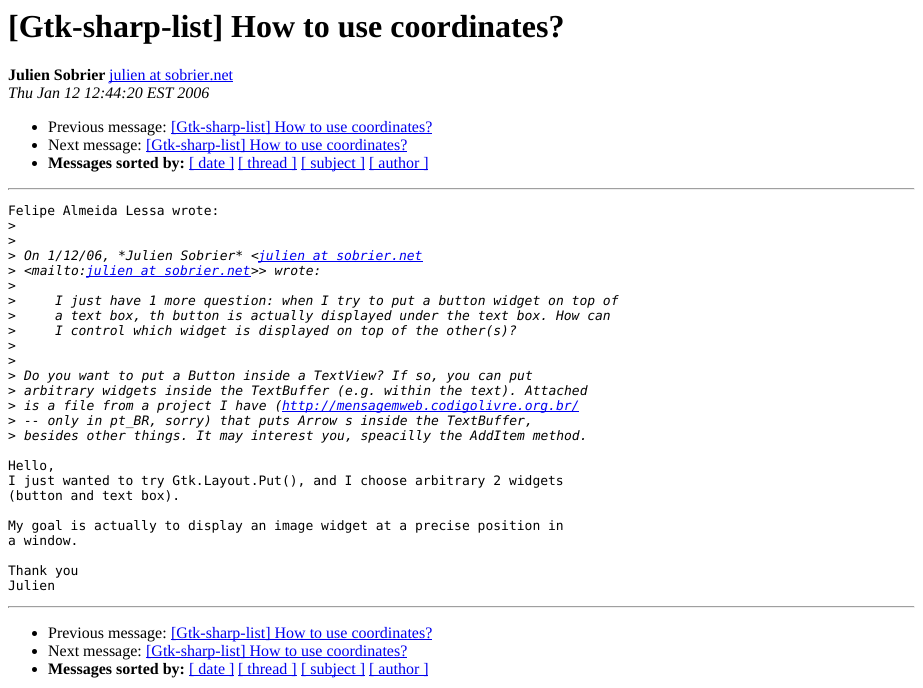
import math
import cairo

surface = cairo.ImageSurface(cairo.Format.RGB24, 923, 688)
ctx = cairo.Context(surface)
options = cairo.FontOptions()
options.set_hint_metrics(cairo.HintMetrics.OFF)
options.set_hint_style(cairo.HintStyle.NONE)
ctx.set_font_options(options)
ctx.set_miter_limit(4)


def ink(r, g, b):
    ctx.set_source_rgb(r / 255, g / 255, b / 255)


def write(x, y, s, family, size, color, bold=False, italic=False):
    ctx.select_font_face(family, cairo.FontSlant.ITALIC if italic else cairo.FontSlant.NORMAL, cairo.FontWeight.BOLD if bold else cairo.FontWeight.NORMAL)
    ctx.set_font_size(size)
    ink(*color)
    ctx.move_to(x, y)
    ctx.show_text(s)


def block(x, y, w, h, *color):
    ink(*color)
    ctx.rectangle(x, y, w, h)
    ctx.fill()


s1 = dict(family="Liberation Serif", size=32, color=(0, 0, 0), bold=True)
s2 = dict(family="Liberation Serif", size=16, color=(0, 0, 0), bold=True)
s3 = dict(family="Liberation Serif", size=16, color=(0, 0, 238))
s4 = dict(family="Liberation Serif", size=16, color=(0, 0, 0), italic=True)
s5 = dict(family="Liberation Serif", size=16, color=(0, 0, 0))
s6 = dict(family="DejaVu Sans Mono", size=13, color=(0, 0, 0))
s7 = dict(family="DejaVu Sans Mono", size=13, color=(0, 0, 0), italic=True)
s8 = dict(family="DejaVu Sans Mono", size=13, color=(0, 0, 238), italic=True)

ink(255, 255, 255)
ctx.paint()
write(8, 37, "[Gtk-sharp-list] How to use coordinates?", **s1)
write(8, 80, "Julien Sobrier", **s2)
block(109, 81, 124, 1, 0, 0, 238)
write(109, 80, "julien at sobrier.net", **s3)
write(8, 98, "Thu Jan 12 12:44:20 EST 2006", **s4)
ctx.new_path()
ctx.arc(34.5, 127.5, 2.5, 0, 2 * math.pi)
ctx.fill()
write(48, 132, "Previous message:", **s5)
block(171, 133, 261, 1, 0, 0, 238)
write(171, 132, "[Gtk-sharp-list] How to use coordinates?", **s3)
ink(0, 0, 0)
ctx.new_path()
ctx.arc(34.5, 145.5, 2.5, 0, 2 * math.pi)
ctx.fill()
write(48, 150, "Next message:", **s5)
block(146, 151, 261, 1, 0, 0, 238)
write(146, 150, "[Gtk-sharp-list] How to use coordinates?", **s3)
ink(0, 0, 0)
ctx.new_path()
ctx.arc(34.5, 163.5, 2.5, 0, 2 * math.pi)
ctx.fill()
write(48, 168, "Messages sorted by:", **s2)
block(189, 169, 45, 1, 0, 0, 238)
write(189, 168, "[ date ]", **s3)
block(238, 169, 59, 1, 0, 0, 238)
write(238, 168, "[ thread ]", **s3)
block(301, 169, 64, 1, 0, 0, 238)
write(301, 168, "[ subject ]", **s3)
block(369, 169, 59, 1, 0, 0, 238)
write(369, 168, "[ author ]", **s3)
block(8, 188, 907, 1, 159, 159, 159)
block(914, 188, 1, 2, 238, 238, 238)
block(8, 189, 907, 1, 238, 238, 238)
block(8, 188, 1, 2, 159, 159, 159)
write(8, 215, "Felipe Almeida Lessa wrote:", **s6)
write(8, 230, ">", **s6)
write(8, 245, ">", **s6)
write(8, 260, ">", **s6)
write(24, 260, "On 1/12/06, *Julien Sobrier* <", **s7)
block(258, 261, 165, 1, 0, 0, 238)
write(258, 260, "julien at sobrier.net", **s8)
write(8, 275, ">", **s6)
write(24, 275, "<mailto:", **s7)
block(86, 276, 165, 1, 0, 0, 238)
write(86, 275, "julien at sobrier.net", **s8)
write(251, 275, ">> wrote:", **s7)
write(8, 290, ">", **s6)
write(8, 305, ">", **s6)
write(55, 305, "I just have 1 more question: when I try to put a button widget on top of", **s7)
write(8, 320, ">", **s6)
write(55, 320, "a text box, th button is actually displayed under the text box. How can", **s7)
write(8, 335, ">", **s6)
write(55, 335, "I control which widget is displayed on top of the other(s)?", **s7)
write(8, 350, ">", **s6)
write(8, 365, ">", **s6)
write(8, 380, ">", **s6)
write(24, 380, "Do you want to put a Button inside a TextView? If so, you can put", **s7)
write(8, 395, ">", **s6)
write(24, 395, "arbitrary widgets inside the TextBuffer (e.g. within the text). Attached", **s7)
write(8, 410, ">", **s6)
write(24, 410, "is a file from a project I have (", **s7)
block(282, 411, 297, 1, 0, 0, 238)
write(282, 410, "http://mensagemweb.codigolivre.org.br/", **s8)
write(8, 425, ">", **s6)
write(24, 425, "-- only in pt_BR, sorry) that puts Arrow s inside the TextBuffer,", **s7)
write(8, 440, ">", **s6)
write(24, 440, "besides other things. It may interest you, speacilly the AddItem method.", **s7)
write(8, 470, "Hello,", **s6)
write(8, 485, "I just wanted to try Gtk.Layout.Put(), and I choose arbitrary 2 widgets", **s6)
write(8, 500, "(button and text box).", **s6)
write(8, 530, "My goal is actually to display an image widget at a precise position in", **s6)
write(8, 545, "a window.", **s6)
write(8, 575, "Thank you", **s6)
write(8, 590, "Julien", **s6)
block(8, 606, 907, 1, 159, 159, 159)
block(914, 606, 1, 2, 238, 238, 238)
block(8, 607, 907, 1, 238, 238, 238)
block(8, 606, 1, 2, 159, 159, 159)
ink(0, 0, 0)
ctx.new_path()
ctx.arc(34.5, 633.5, 2.5, 0, 2 * math.pi)
ctx.fill()
write(48, 638, "Previous message:", **s5)
block(171, 639, 261, 1, 0, 0, 238)
write(171, 638, "[Gtk-sharp-list] How to use coordinates?", **s3)
ink(0, 0, 0)
ctx.new_path()
ctx.arc(34.5, 651.5, 2.5, 0, 2 * math.pi)
ctx.fill()
write(48, 656, "Next message:", **s5)
block(146, 657, 261, 1, 0, 0, 238)
write(146, 656, "[Gtk-sharp-list] How to use coordinates?", **s3)
ink(0, 0, 0)
ctx.new_path()
ctx.arc(34.5, 669.5, 2.5, 0, 2 * math.pi)
ctx.fill()
write(48, 674, "Messages sorted by:", **s2)
block(189, 675, 45, 1, 0, 0, 238)
write(189, 674, "[ date ]", **s3)
block(238, 675, 59, 1, 0, 0, 238)
write(238, 674, "[ thread ]", **s3)
block(301, 675, 64, 1, 0, 0, 238)
write(301, 674, "[ subject ]", **s3)
block(369, 675, 59, 1, 0, 0, 238)
write(369, 674, "[ author ]", **s3)
surface.write_to_png("screenshot.png")
